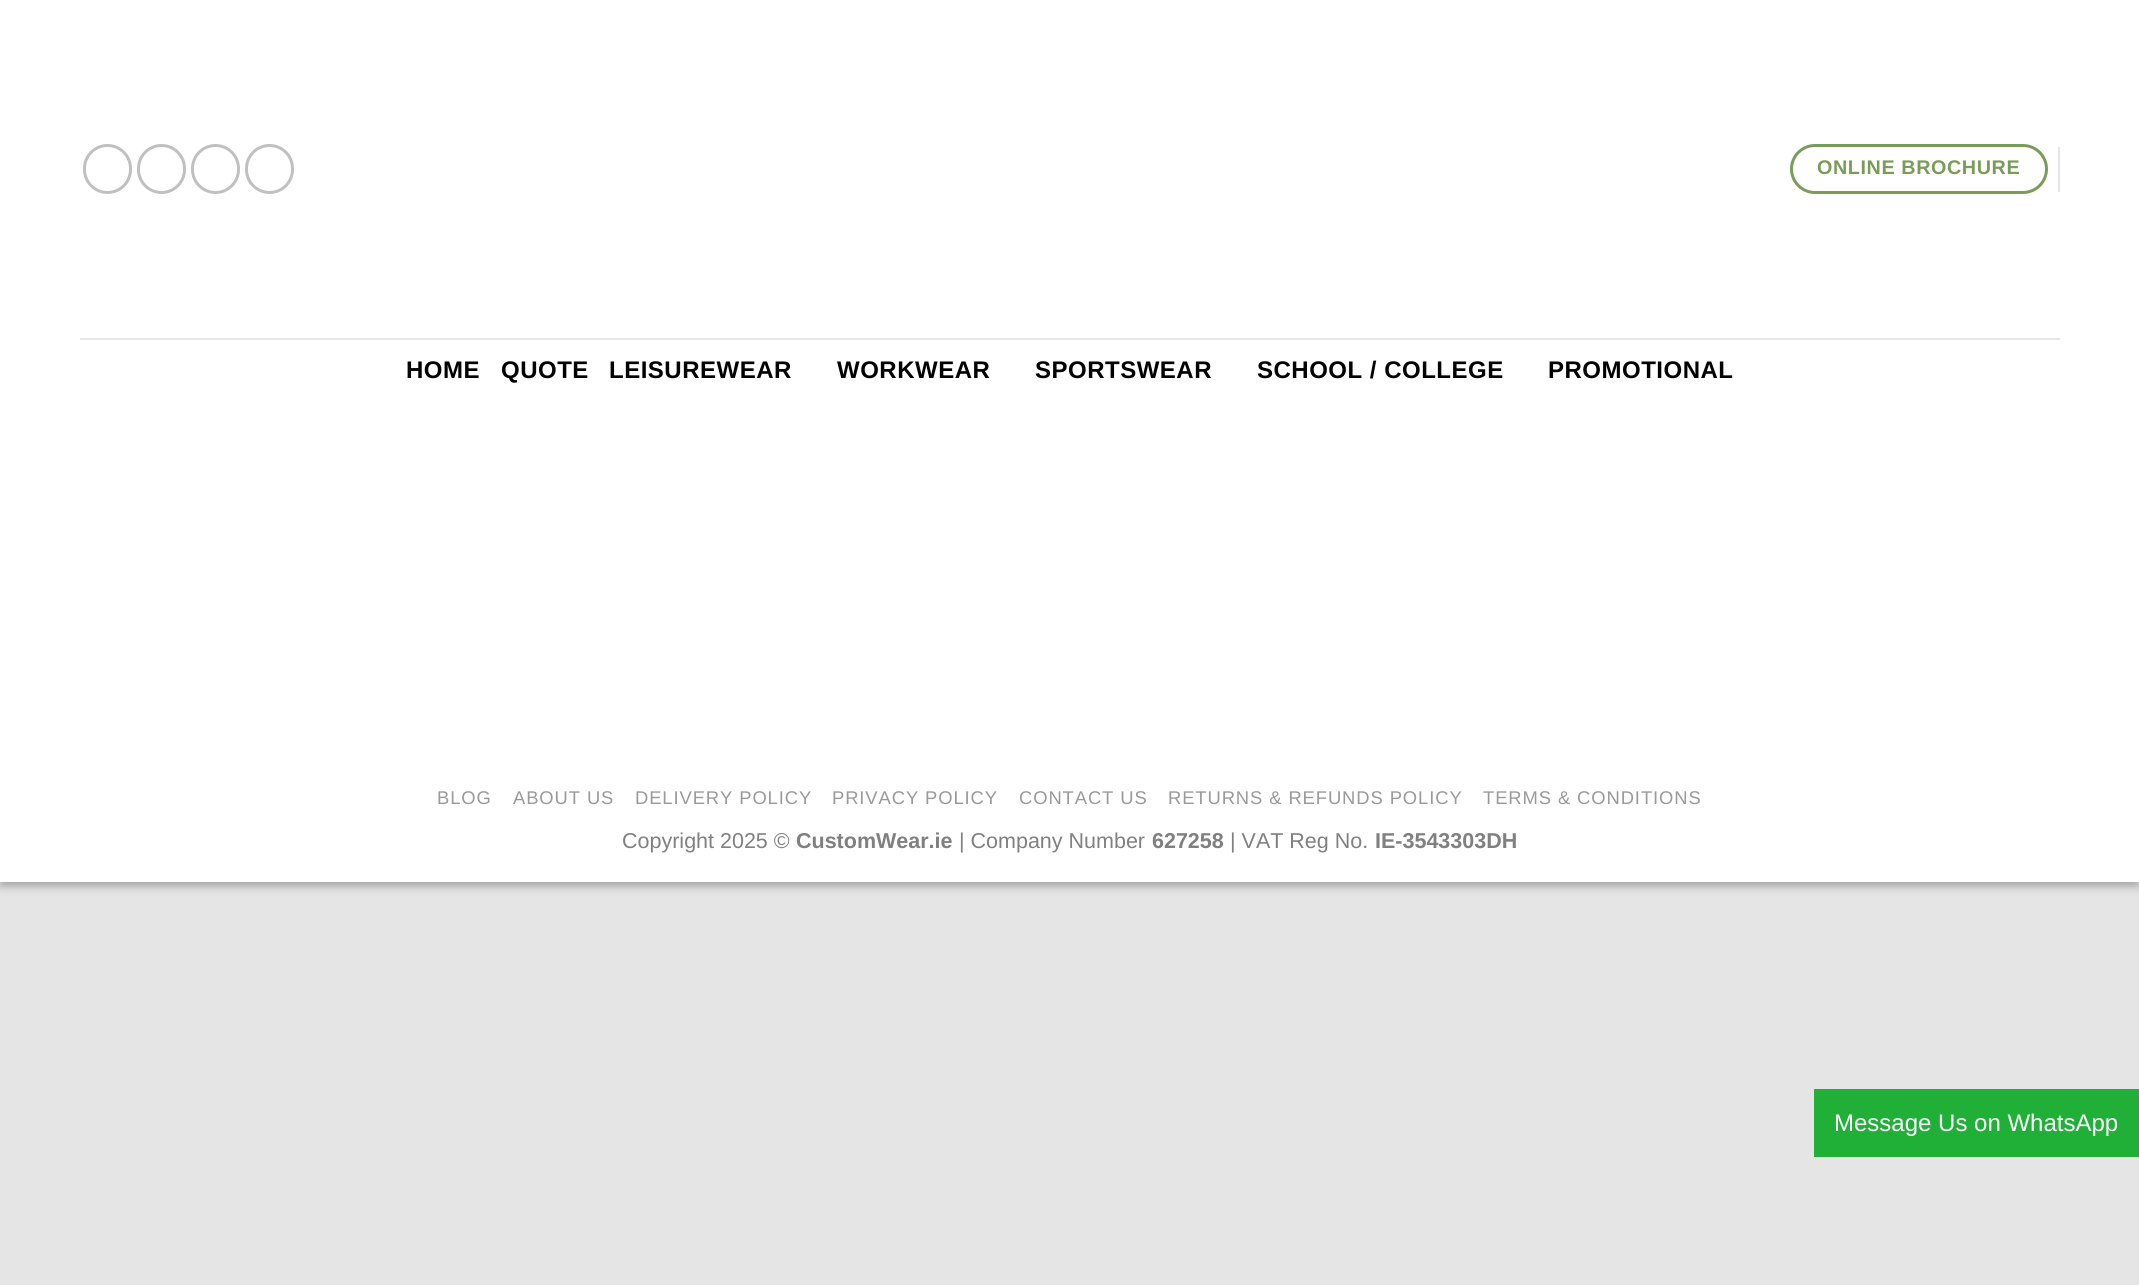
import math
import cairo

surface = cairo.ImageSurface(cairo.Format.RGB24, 2139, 1285)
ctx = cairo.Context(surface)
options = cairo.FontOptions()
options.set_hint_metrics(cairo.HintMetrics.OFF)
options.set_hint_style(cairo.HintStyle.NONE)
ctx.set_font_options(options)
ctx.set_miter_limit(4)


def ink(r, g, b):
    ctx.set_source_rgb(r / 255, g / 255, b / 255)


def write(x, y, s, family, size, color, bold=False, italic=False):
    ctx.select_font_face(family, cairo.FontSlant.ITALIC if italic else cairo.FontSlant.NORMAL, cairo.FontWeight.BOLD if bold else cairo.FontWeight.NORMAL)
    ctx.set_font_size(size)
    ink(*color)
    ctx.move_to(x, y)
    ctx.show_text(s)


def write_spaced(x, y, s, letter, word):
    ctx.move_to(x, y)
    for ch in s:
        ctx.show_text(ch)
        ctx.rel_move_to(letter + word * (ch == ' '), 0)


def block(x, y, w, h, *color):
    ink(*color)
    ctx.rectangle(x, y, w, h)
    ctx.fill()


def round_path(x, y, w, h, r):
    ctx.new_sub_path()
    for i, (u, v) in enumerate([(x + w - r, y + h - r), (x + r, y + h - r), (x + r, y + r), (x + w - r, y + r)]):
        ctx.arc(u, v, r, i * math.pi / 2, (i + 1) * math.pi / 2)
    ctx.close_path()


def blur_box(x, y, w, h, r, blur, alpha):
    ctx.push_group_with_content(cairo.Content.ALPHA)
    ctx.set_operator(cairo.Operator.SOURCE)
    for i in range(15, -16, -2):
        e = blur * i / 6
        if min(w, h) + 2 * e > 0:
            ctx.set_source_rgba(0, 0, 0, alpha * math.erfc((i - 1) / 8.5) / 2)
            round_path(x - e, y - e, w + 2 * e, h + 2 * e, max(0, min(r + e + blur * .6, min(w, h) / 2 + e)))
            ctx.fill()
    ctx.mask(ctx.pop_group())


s1 = dict(family="Liberation Sans", size=21.5, color=(128, 128, 128))
s2 = dict(family="Liberation Sans", size=21.5, color=(128, 128, 128), bold=True)
s3 = dict(family="Liberation Sans", size=24, color=(255, 255, 255))

ink(229, 229, 229)
ctx.paint()
ink(0, 0, 0)
blur_box(0, 5, 2139, 882, 0, 4.5, 0.23)
blur_box(6, 11, 2127, 870, 0, 4.5, 0.16)
block(0, 0, 2139, 882, 255, 255, 255)
round_path(84.5, 145.5, 46, 47, 23)
ink(192, 192, 192)
ctx.set_line_width(3)
ctx.stroke()
round_path(138.5, 145.5, 46, 47, 23)
ctx.stroke()
round_path(192.5, 145.5, 46, 47, 23)
ctx.stroke()
round_path(246.5, 145.5, 46, 47, 23)
ctx.stroke()
round_path(1791.5, 145.5, 255, 47, 23.5)
ink(122, 156, 89)
ctx.stroke()
ctx.select_font_face("Liberation Sans", cairo.FontSlant.NORMAL, cairo.FontWeight.BOLD)
ctx.set_font_size(19.75)
write_spaced(1817, 174, "ONLINE BROCHURE", 0.6, 0)
block(2058, 147, 2, 45, 230, 230, 230)
block(80, 338, 1980, 2, 230, 230, 230)
ctx.set_font_size(24)
ink(0, 0, 0)
write_spaced(406, 378, "HOME", 0.5, 0)
write_spaced(501, 378, "QUOTE", 0.5, 0)
write_spaced(609, 378, "LEISUREWEAR", 0.5, 0)
write_spaced(837, 378, "WORKWEAR", 0.5, 0)
write_spaced(1035, 378, "SPORTSWEAR", 0.5, 0)
write_spaced(1257, 378, "SCHOOL / COLLEGE", 0.5, 0)
write_spaced(1548, 378, "PROMOTIONAL", 0.5, 0)
ctx.select_font_face("Liberation Sans")
ctx.set_font_size(18.4)
ink(153, 153, 153)
write_spaced(437, 804, "BLOG", 0.9, 0)
write_spaced(513, 804, "ABOUT US", 0.9, 0)
write_spaced(635, 804, "DELIVERY POLICY", 0.9, 0)
write_spaced(832, 804, "PRIVACY POLICY", 0.9, 0)
write_spaced(1019, 804, "CONTACT US", 0.9, 0)
write_spaced(1168, 804, "RETURNS & REFUNDS POLICY", 0.9, 0)
write_spaced(1483, 804, "TERMS & CONDITIONS", 0.9, 0)
write(622, 848, "Copyright 2025 ©", **s1)
write(796, 848, "CustomWear.ie", **s2)
write(959, 848, "| Company Number", **s1)
write(1152, 848, "627258", **s2)
write(1230, 848, "| VAT Reg No.", **s1)
write(1375, 848, "IE-3543303DH", **s2)
block(1814, 1089, 325, 68, 32, 176, 56)
write(1834, 1131, "Message Us on WhatsApp", **s3)
surface.write_to_png("screenshot.png")
